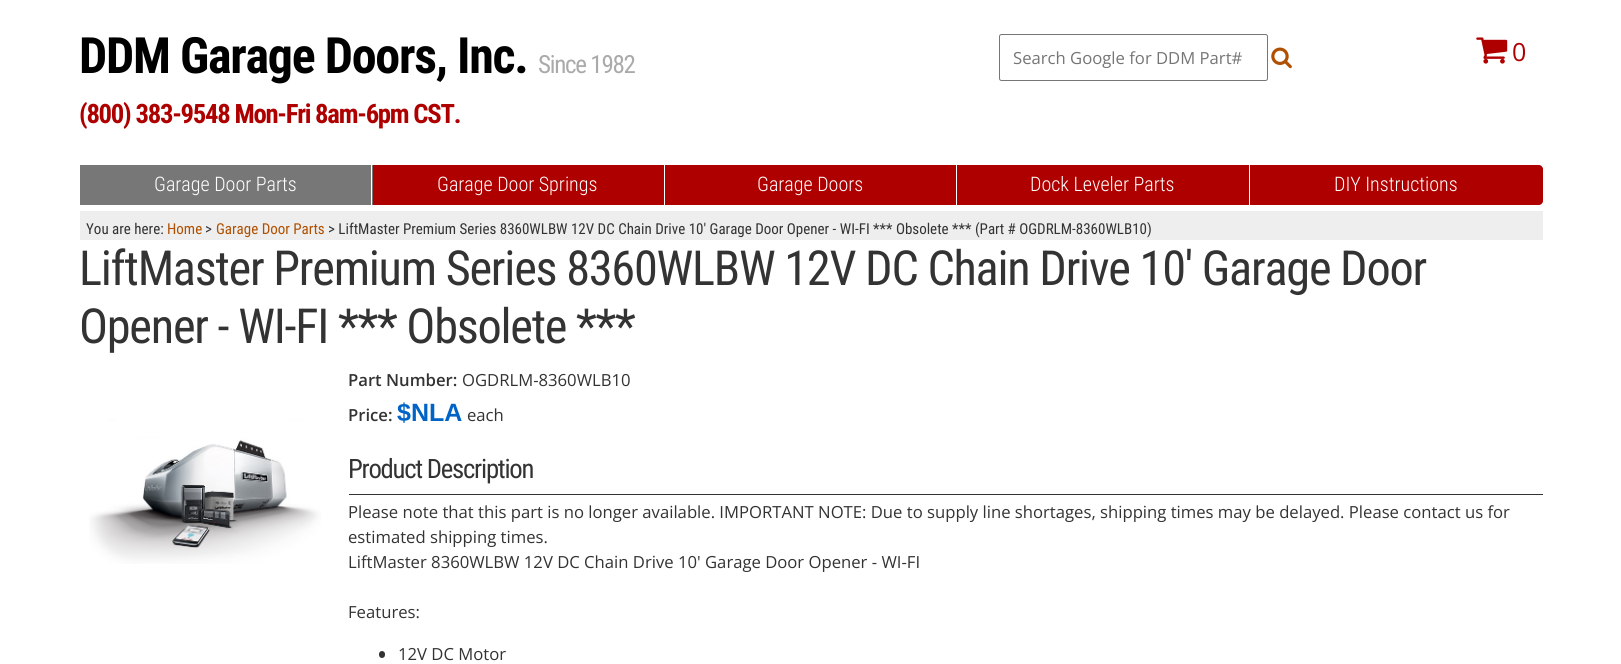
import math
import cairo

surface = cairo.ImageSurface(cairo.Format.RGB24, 1621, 664)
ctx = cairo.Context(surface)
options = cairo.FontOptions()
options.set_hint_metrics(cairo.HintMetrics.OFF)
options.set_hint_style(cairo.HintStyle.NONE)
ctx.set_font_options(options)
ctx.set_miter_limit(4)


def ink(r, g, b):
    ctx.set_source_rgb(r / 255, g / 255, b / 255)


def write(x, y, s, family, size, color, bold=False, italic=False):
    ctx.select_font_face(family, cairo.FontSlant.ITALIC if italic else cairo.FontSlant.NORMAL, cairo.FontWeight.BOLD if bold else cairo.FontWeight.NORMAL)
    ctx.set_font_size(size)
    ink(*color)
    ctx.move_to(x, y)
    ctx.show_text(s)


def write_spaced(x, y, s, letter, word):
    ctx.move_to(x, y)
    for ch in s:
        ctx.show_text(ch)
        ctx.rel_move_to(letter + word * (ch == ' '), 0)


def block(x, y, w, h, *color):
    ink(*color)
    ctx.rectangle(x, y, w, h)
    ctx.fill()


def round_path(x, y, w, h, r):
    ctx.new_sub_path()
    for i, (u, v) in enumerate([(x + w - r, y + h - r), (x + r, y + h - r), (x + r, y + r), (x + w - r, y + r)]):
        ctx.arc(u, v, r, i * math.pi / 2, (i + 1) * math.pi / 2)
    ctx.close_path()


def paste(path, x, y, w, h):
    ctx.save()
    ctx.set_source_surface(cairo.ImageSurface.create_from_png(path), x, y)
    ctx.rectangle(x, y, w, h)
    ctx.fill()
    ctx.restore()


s1 = dict(family="Open Sans", size=16.67, color=(117, 117, 117))
s2 = dict(family="Open Sans", size=25, color=(175, 0, 0))
s3 = dict(family="Roboto Condensed Light", size=20, color=(255, 255, 255))
s4 = dict(family="Roboto Condensed", size=15, color=(51, 51, 51))
s5 = dict(family="Roboto Condensed", size=15, color=(175, 79, 0))
s6 = dict(family="Open Sans SemiBold", size=16.67, color=(51, 51, 51))
s7 = dict(family="Open Sans", size=16.67, color=(51, 51, 51))
s8 = dict(family="Liberation Sans", size=25, color=(0, 99, 198), bold=True)

ink(255, 255, 255)
ctx.paint()
ctx.select_font_face("Roboto Condensed", cairo.FontSlant.NORMAL, cairo.FontWeight.BOLD)
ctx.set_font_size(50)
ink(0, 0, 0)
write_spaced(79, 73, "DDM Garage Doors, Inc.", -1.25, 0)
ctx.select_font_face("Roboto Condensed")
ctx.set_font_size(25)
ink(170, 170, 170)
write_spaced(538, 73, "Since 1982", -1.25, 0)
ctx.select_font_face("Roboto Condensed", cairo.FontSlant.NORMAL, cairo.FontWeight.BOLD)
ctx.set_font_size(26.7)
ink(175, 0, 0)
write_spaced(79, 123, "(800) 383-9548 Mon-Fri 8am-6pm CST.", -1.25, 0)
round_path(999.5, 34.5, 268, 46, 2)
ink(118, 118, 118)
ctx.set_line_width(1)
ctx.stroke()
write(1013, 64, "Search Google for DDM Part#", **s1)
paste("pic1.png", 1271, 47, 21, 22)
paste("pic2.png", 1476, 37, 32, 27)
write(1512, 61, "0", **s2)
block(80, 165, 293, 40, 119, 119, 119)
block(371, 165, 1, 40, 255, 255, 255)
write(154, 191, "Garage Door Parts", **s3)
block(373, 165, 291, 40, 175, 0, 0)
write(437, 191, "Garage Door Springs", **s3)
block(665, 165, 584, 40, 175, 0, 0)
block(956, 165, 1, 40, 255, 255, 255)
write(757, 191, "Garage Doors", **s3)
write(1030, 191, "Dock Leveler Parts", **s3)
ink(175, 0, 0)
ctx.new_path()
ctx.move_to(1250, 165)
ctx.line_to(1539, 165)
ctx.curve_to(1541, 165, 1543, 167, 1543, 169)
ctx.line_to(1543, 201)
ctx.curve_to(1543, 203, 1541, 205, 1539, 205)
ctx.line_to(1250, 205)
ctx.close_path()
ctx.fill()
write(1334, 191, "DIY Instructions", **s3)
block(80, 211, 1463, 29, 238, 238, 238)
write(86, 234, "You are here:", **s4)
write(167, 234, "Home", **s5)
write(205, 234, ">", **s4)
write(216, 234, "Garage Door Parts", **s5)
write(328, 234, "> LiftMaster Premium Series 8360WLBW 12V DC Chain Drive 10' Garage Door Opener - WI-FI *** Obsolete *** (Part # OGDRLM-8360WLB10)", **s4)
ctx.set_font_size(48.3)
write_spaced(79, 285, "LiftMaster Premium Series 8360WLBW 12V DC Chain Drive 10' Garage Door", -1.25, 0)
write_spaced(79, 343, "Opener - WI-FI *** Obsolete ***", -1.25, 0)
paste("pic3.png", 89, 419, 232, 145)
write(348, 386, "Part Number:", **s6)
write(462, 386, "OGDRLM-8360WLB10", **s7)
write(348, 421, "Price:", **s6)
write(397, 421, "$NLA", **s8)
write(467, 421, "each", **s7)
block(349, 494, 1194, 1, 51, 51, 51)
ctx.select_font_face("Roboto Condensed")
ctx.set_font_size(26.7)
write_spaced(348, 478, "Product Description", -1.25, 0)
write(348, 518, "Please note that this part is no longer available. IMPORTANT NOTE: Due to supply line shortages, shipping times may be delayed. Please contact us for", **s7)
write(348, 543, "estimated shipping times.", **s7)
write(348, 568, "LiftMaster 8360WLBW 12V DC Chain Drive 10' Garage Door Opener - WI-FI", **s7)
write(348, 618, "Features:", **s7)
round_path(379, 651, 6, 7, 3)
ctx.fill()
write(398, 660, "12V DC Motor", **s7)
surface.write_to_png("screenshot.png")
